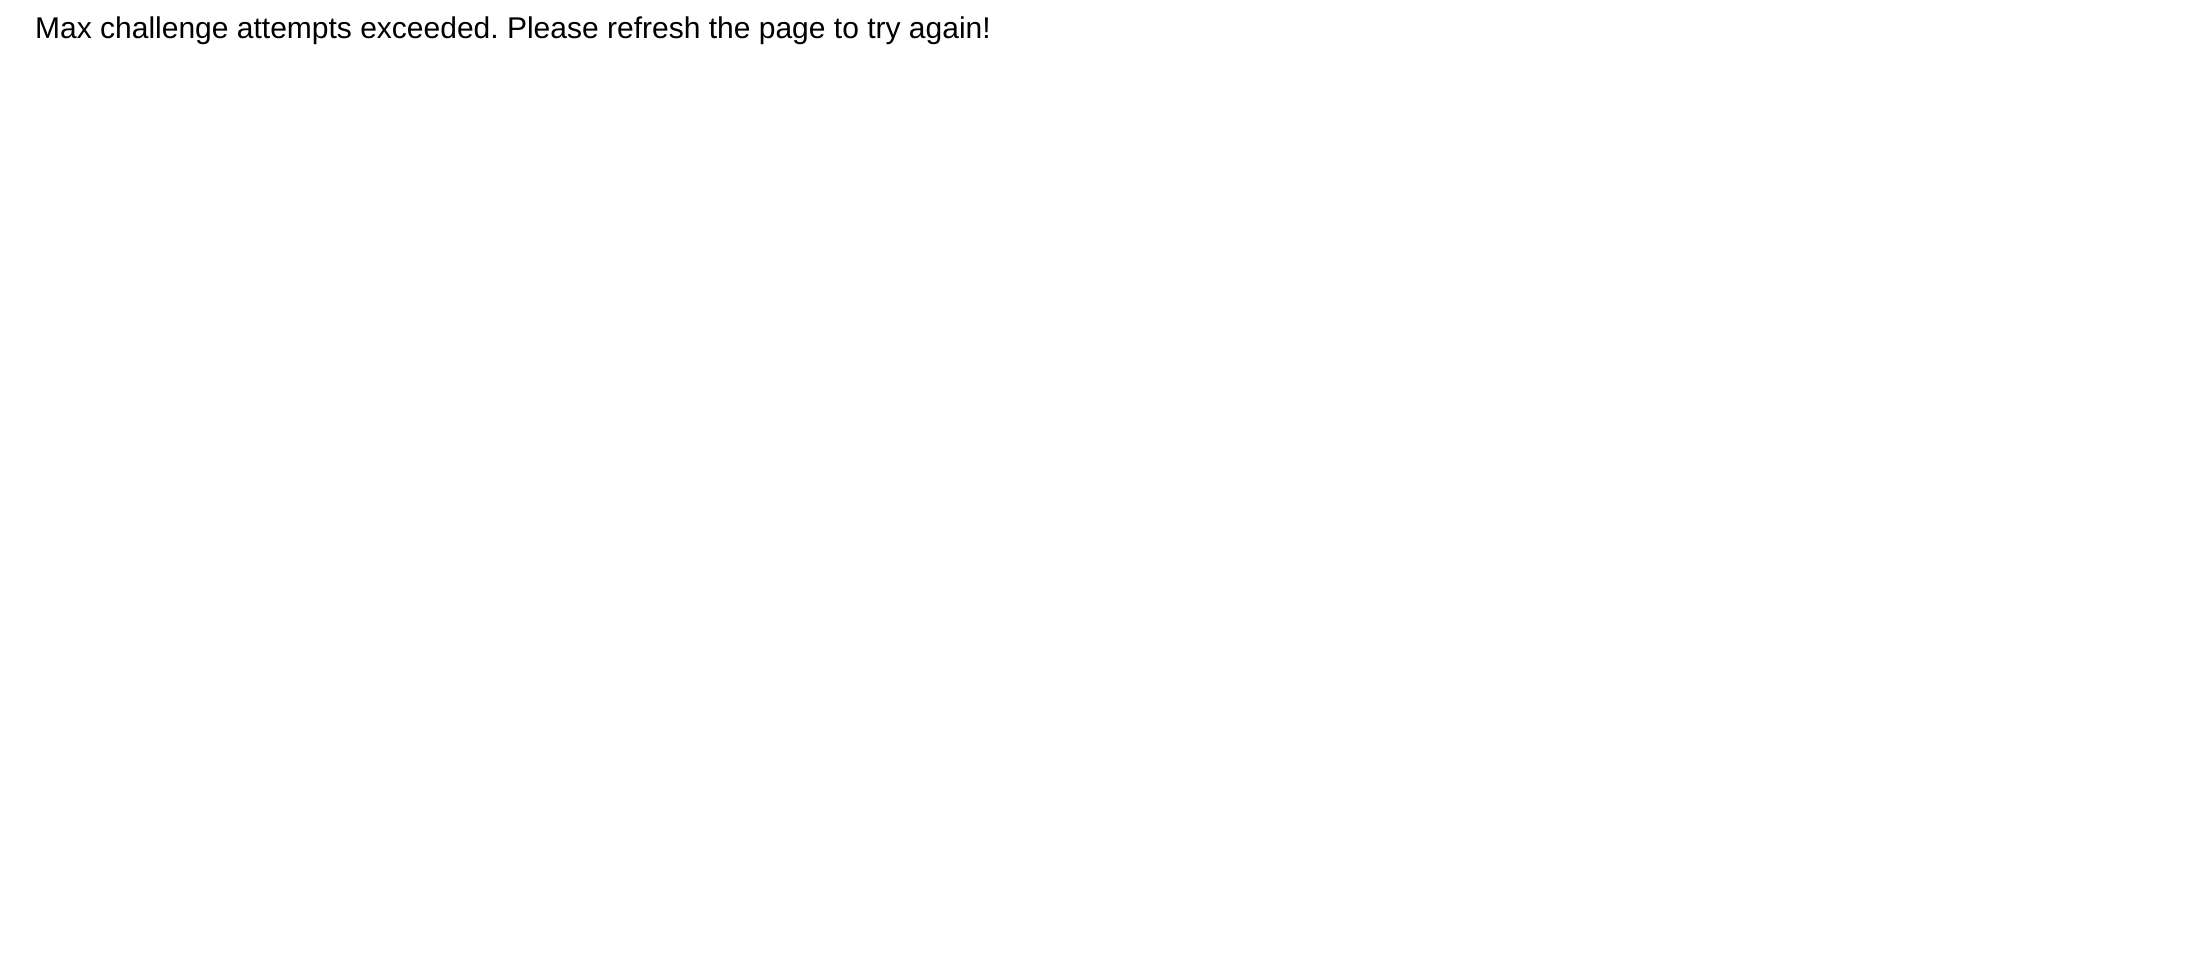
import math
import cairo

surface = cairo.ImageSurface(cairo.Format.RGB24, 2199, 974)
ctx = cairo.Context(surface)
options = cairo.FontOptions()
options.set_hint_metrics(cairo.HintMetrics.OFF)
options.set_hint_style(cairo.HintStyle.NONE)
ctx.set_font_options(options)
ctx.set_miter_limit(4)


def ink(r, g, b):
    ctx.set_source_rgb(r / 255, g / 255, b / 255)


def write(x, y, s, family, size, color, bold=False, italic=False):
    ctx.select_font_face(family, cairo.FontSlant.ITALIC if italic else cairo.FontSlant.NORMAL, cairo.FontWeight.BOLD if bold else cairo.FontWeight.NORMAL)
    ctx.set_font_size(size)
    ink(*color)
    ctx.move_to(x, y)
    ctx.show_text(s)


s1 = dict(family="Liberation Sans", size=30, color=(0, 0, 0))

ink(255, 255, 255)
ctx.paint()
write(35, 38, "Max challenge attempts exceeded. Please refresh the page to try again!", **s1)
surface.write_to_png("screenshot.png")
